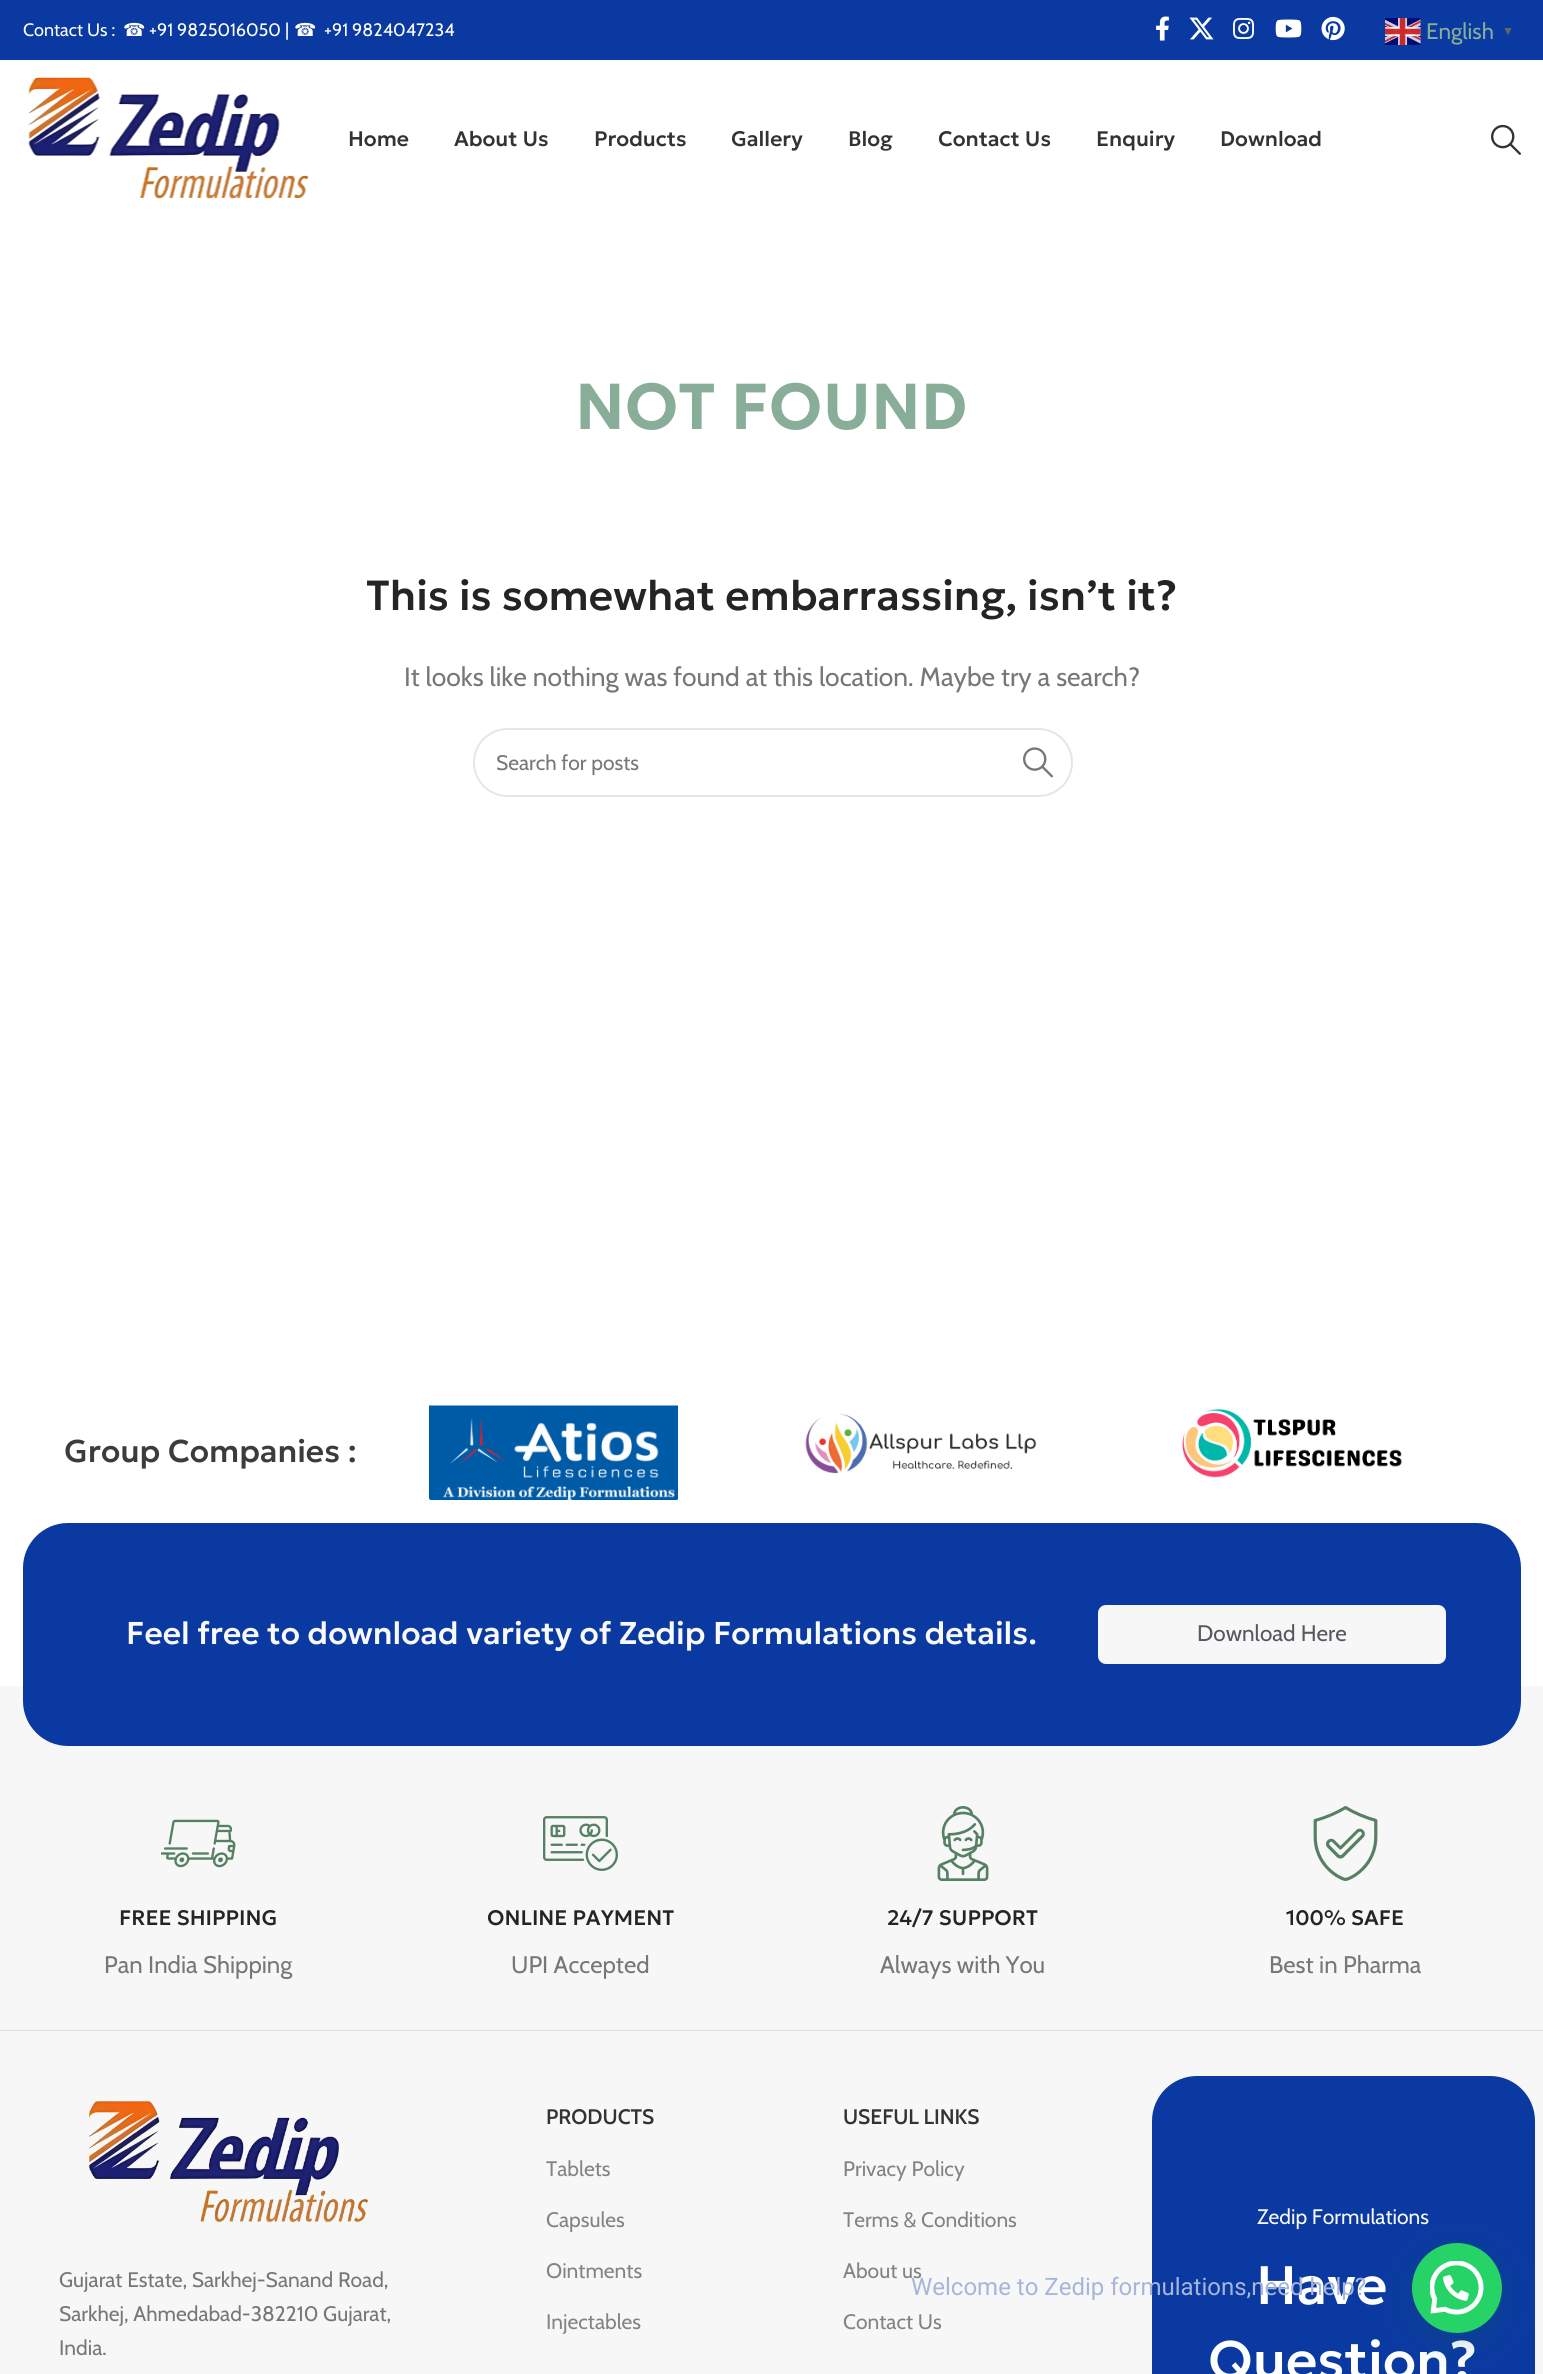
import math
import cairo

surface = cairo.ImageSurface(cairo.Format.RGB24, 1543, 2374)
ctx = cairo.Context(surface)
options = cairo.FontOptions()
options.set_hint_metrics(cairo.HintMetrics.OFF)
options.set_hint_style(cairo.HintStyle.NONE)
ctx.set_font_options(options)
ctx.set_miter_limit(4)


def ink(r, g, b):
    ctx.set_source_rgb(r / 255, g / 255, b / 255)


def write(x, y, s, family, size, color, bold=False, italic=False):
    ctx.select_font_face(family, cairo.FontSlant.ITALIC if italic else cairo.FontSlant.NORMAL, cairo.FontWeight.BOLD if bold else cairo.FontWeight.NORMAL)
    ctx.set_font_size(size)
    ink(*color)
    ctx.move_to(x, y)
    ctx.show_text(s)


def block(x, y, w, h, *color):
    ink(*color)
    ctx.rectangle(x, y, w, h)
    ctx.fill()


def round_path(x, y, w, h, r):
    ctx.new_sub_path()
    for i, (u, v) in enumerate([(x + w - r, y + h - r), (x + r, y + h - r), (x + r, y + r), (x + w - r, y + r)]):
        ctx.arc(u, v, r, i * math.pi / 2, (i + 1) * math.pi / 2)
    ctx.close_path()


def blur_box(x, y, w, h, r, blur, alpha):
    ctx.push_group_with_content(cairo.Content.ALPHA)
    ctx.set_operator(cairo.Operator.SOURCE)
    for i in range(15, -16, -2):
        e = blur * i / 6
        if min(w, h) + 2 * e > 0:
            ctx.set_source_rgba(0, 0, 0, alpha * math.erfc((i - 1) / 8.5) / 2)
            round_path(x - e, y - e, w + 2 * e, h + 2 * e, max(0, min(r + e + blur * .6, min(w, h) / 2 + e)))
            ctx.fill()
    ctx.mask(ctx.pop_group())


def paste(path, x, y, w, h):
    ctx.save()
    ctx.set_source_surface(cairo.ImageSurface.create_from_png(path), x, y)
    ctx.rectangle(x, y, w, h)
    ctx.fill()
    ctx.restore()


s1 = dict(family="Cabin", size=18, color=(255, 255, 255))
s2 = dict(family="DejaVu Sans", size=18, color=(255, 255, 255))
s3 = dict(family="Cabin", size=22.5, color=(136, 173, 153))
s4 = dict(family="Liberation Sans", size=12, color=(102, 102, 102), bold=True)
s5 = dict(family="Geologica Thin", size=21, color=(51, 51, 51))
s6 = dict(family="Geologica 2 Thin", size=64.75, color=(136, 173, 153))
s7 = dict(family="Geologica Thin", size=42, color=(36, 36, 36))
s8 = dict(family="Cabin", size=26.4, color=(119, 119, 119))
s9 = dict(family="Cabin", size=21, color=(119, 119, 119))
s10 = dict(family="Geologica Thin", size=31.5, color=(60, 60, 60))
s11 = dict(family="Geologica Thin", size=31.5, color=(249, 249, 249))
s12 = dict(family="Cabin", size=22.5, color=(84, 89, 95))
s13 = dict(family="Geologica Thin", size=21, color=(36, 36, 36))
s14 = dict(family="Cabin", size=24, color=(119, 119, 119))
s15 = dict(family="Cabin SemiBold", size=21, color=(51, 51, 51))
s16 = dict(family="Cabin", size=21, color=(131, 131, 131))
s17 = dict(family="Cabin", size=21, color=(249, 249, 249))
s18 = dict(family="Geologica Thin", size=54, color=(255, 255, 255))
s19 = dict(family="Roboto", size=24, color=(166, 182, 218))

ink(255, 255, 255)
ctx.paint()
block(0, 0, 1543, 60, 11, 57, 162)
write(23, 36, "Contact Us :", **s1)
write(123, 36, "☎", **s2)
write(149, 36, "+91 9825016050 |", **s1)
write(294, 36, "☎", **s2)
write(324, 36, "+91 9824047234", **s1)
paste("pic1.png", 1156, 16, 13, 25)
paste("pic2.png", 1189, 17, 25, 23)
paste("pic3.png", 1233, 18, 21, 21)
paste("pic4.png", 1275, 19, 27, 19)
paste("pic5.png", 1321, 16, 24, 25)
paste("pic6.png", 1385, 18, 36, 27)
write(1426, 39, "English", **s3)
write(1502, 35, "▼", **s4)
paste("pic7.png", 28, 77, 281, 122)
write(348, 146, "Home", **s5)
write(454, 146, "About Us", **s5)
write(594, 146, "Products", **s5)
write(731, 146, "Gallery", **s5)
write(848, 146, "Blog", **s5)
write(938, 146, "Contact Us", **s5)
write(1096, 146, "Enquiry", **s5)
write(1220, 146, "Download", **s5)
paste("pic8.png", 1491, 124, 30, 31)
write(575, 429, "NOT FOUND", **s6)
write(366, 610, "This is somewhat embarrassing, isn’t it?", **s7)
write(404, 686, "It looks like nothing was found at this location. Maybe try a search?", **s8)
round_path(474, 729, 598, 67, 33.5)
ink(230, 230, 230)
ctx.stroke()
write(496, 770, "Search for posts", **s9)
paste("pic9.png", 1023, 747, 30, 31)
write(64, 1462, "Group Companies :", **s10)
paste("pic10.png", 429, 1405, 249, 95)
paste("pic11.png", 805, 1413, 232, 61)
paste("pic12.png", 1182, 1408, 220, 70)
block(0, 1686, 1543, 344, 247, 247, 247)
ink(11, 57, 162)
round_path(23, 1523, 1498, 223, 45)
ctx.fill()
write(126, 1644, "Feel free to download variety of Zedip Formulations details.", **s11)
ink(247, 247, 247)
round_path(1098, 1605, 348, 59, 8)
ctx.fill()
write(1197, 1641, "Download Here", **s12)
block(0, 2030, 1543, 1, 223, 223, 223)
paste("pic13.png", 161, 1819, 75, 49)
write(119, 1925, "FREE SHIPPING", **s13)
write(104, 1973, "Pan India Shipping", **s14)
paste("pic14.png", 543, 1816, 75, 55)
write(487, 1925, "ONLINE PAYMENT", **s13)
write(511, 1973, "UPI Accepted", **s14)
paste("pic15.png", 937, 1806, 52, 75)
write(887, 1925, "24/7 SUPPORT", **s13)
write(880, 1973, "Always with You", **s14)
paste("pic16.png", 1313, 1806, 65, 75)
write(1286, 1925, "100% SAFE", **s13)
write(1269, 1973, "Best in Pharma", **s14)
block(0, 2031, 1543, 343, 247, 247, 247)
paste("pic17.png", 89, 2101, 279, 122)
write(59, 2287, "Gujarat Estate, Sarkhej-Sanand Road,", **s9)
write(59, 2321, "Sarkhej, Ahmedabad-382210 Gujarat,", **s9)
write(59, 2355, "India.", **s9)
write(546, 2124, "PRODUCTS", **s15)
write(546, 2176, "Tablets", **s16)
write(546, 2227, "Capsules", **s16)
write(546, 2278, "Ointments", **s16)
write(546, 2329, "Injectables", **s16)
write(843, 2124, "USEFUL LINKS", **s15)
write(843, 2176, "Privacy Policy", **s16)
write(843, 2227, "Terms & Conditions", **s16)
write(843, 2278, "About us", **s16)
write(843, 2329, "Contact Us", **s16)
ink(11, 57, 162)
round_path(1152, 2076, 383, 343, 45)
ctx.fill()
write(1257, 2224, "Zedip Formulations", **s17)
write(1256, 2304, "Have", **s18)
write(1208, 2379, "Question?", **s18)
ink(7, 94, 84)
blur_box(1413, 2252, 90, 90, 45, 18, 0.24)
ink(37, 211, 102)
ctx.arc(1457, 2288, 45, 0, 2 * math.pi)
ctx.fill()
paste("pic18.png", 1430, 2261, 54, 54)
write(911, 2295, "Welcome to Zedip formulations,need help?", **s19)
surface.write_to_png("screenshot.png")
